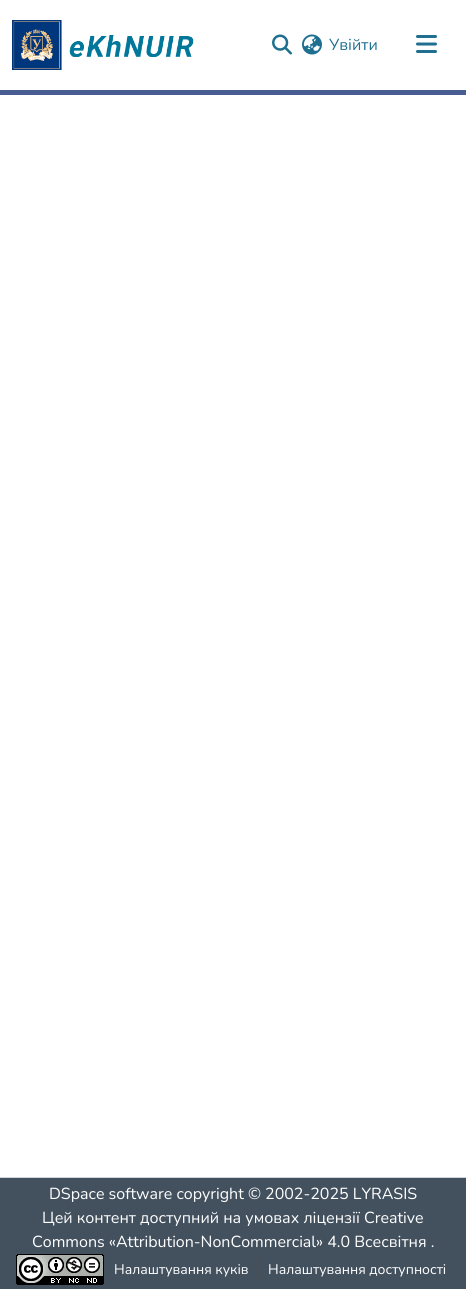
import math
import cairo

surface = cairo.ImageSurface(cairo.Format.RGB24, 466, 1289)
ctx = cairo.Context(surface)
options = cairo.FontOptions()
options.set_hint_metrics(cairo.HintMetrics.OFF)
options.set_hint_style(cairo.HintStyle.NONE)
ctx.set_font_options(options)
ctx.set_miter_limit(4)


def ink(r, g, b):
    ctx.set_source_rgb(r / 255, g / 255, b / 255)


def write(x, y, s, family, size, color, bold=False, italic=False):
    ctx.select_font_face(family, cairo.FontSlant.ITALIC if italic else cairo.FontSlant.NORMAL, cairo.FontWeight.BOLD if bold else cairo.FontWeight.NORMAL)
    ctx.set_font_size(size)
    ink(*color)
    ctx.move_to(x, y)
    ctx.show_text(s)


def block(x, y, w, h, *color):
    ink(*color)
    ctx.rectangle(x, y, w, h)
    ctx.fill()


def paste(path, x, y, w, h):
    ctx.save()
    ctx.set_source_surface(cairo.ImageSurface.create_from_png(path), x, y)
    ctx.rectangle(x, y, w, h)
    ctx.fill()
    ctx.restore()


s1 = dict(family="Nunito", size=16, color=(30, 111, 144))
s2 = dict(family="Nunito", size=16, color=(255, 255, 255))
s3 = dict(family="Nunito", size=14, color=(255, 255, 255))

ink(255, 255, 255)
ctx.paint()
block(0, 90, 466, 5, 72, 93, 145)
paste("pic1.png", 12, 20, 182, 50)
paste("pic2.png", 272, 34, 20, 21)
paste("pic3.png", 302, 34, 20, 21)
write(329, 50, "Увійти", **s1)
paste("pic4.png", 416, 35, 21, 18)
block(0, 1178, 466, 111, 67, 81, 95)
block(0, 1177, 466, 1, 206, 212, 218)
write(49, 1199, "DSpace software copyright © 2002-2025 LYRASIS", **s2)
write(42, 1223, "Цей контент доступний на умовах ліцензії Creative", **s2)
write(32, 1247, "Commons «Attribution-NonCommercial» 4.0 Всесвітня .", **s2)
paste("pic5.png", 16, 1254, 88, 31)
write(114, 1274, "Налаштування куків", **s3)
block(258, 1258, 1, 23, 73, 80, 87)
write(268, 1274, "Налаштування доступності", **s3)
surface.write_to_png("screenshot.png")
